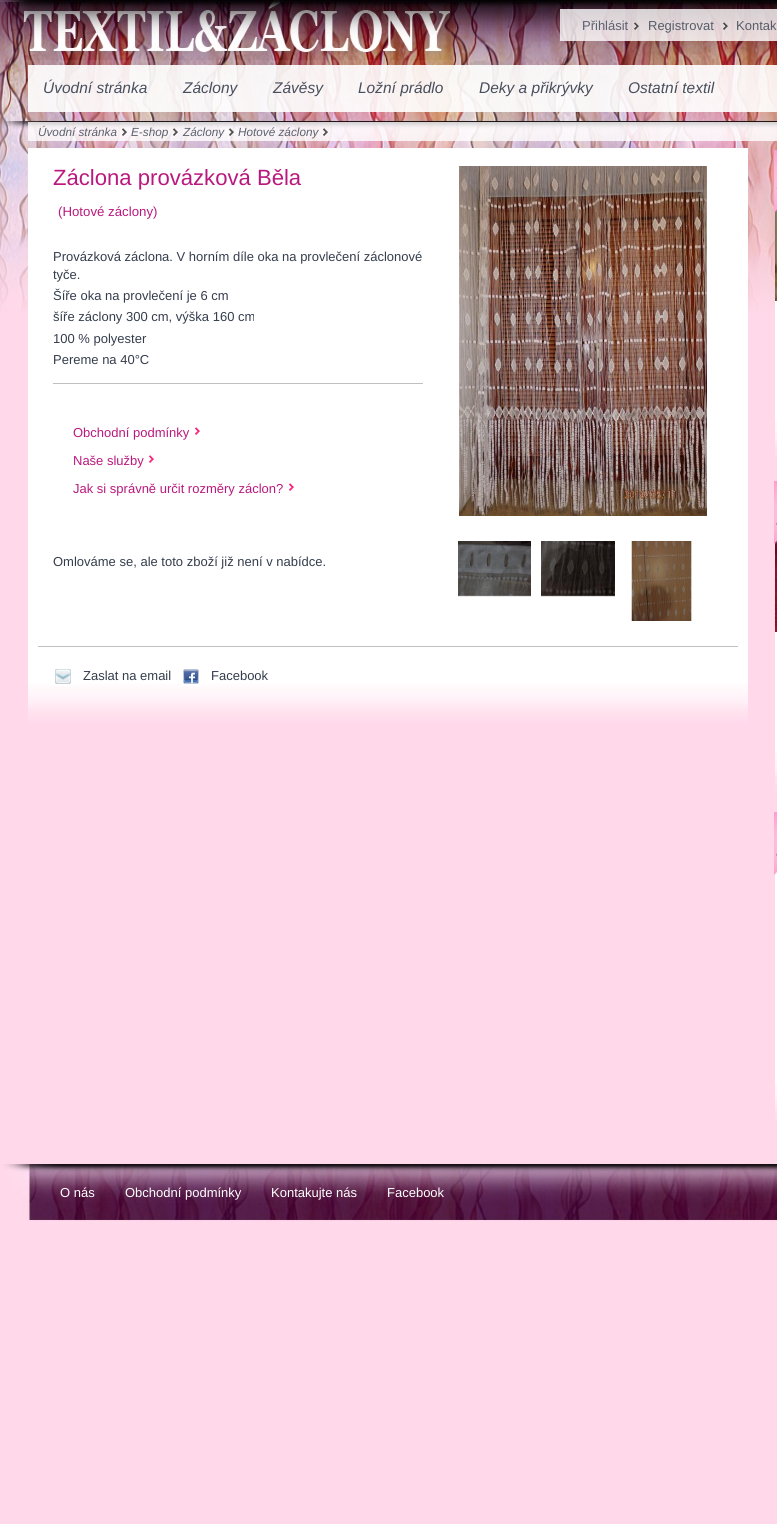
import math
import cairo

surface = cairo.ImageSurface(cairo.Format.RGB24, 777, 1524)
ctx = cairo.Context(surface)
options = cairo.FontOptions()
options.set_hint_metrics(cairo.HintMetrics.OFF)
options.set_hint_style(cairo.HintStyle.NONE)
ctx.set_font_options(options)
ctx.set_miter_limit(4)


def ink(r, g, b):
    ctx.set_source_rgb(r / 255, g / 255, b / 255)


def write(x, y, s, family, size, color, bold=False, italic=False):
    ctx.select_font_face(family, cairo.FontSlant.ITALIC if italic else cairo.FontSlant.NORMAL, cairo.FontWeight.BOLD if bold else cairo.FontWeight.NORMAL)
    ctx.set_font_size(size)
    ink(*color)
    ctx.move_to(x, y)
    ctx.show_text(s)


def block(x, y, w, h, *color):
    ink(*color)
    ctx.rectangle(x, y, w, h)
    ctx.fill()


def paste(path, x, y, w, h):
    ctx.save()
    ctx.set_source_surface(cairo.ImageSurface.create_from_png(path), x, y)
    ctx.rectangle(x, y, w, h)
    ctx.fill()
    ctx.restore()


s1 = dict(family="Liberation Sans", size=13, color=(91, 97, 110))
s2 = dict(family="Liberation Sans", size=13, color=(87, 92, 104))
s3 = dict(family="Liberation Sans", size=15.5, color=(72, 79, 93), italic=True)
s4 = dict(family="Liberation Sans", size=11.75, color=(91, 97, 110), italic=True)
s5 = dict(family="Liberation Sans", size=22.1, color=(185, 25, 126))
s6 = dict(family="Liberation Sans", size=13.25, color=(185, 25, 126))
s7 = dict(family="Liberation Sans", size=13, color=(52, 61, 76))
s8 = dict(family="Liberation Sans", size=13, color=(185, 25, 126))
s9 = dict(family="Liberation Sans", size=13, color=(255, 255, 255))

ink(255, 216, 234)
ctx.paint()
paste("pic1.png", 0, 122, 777, 191)
paste("pic2.png", 0, 0, 777, 122)
paste("pic3.png", 24, 0, 429, 60)
ctx.set_source_rgba(1, 1, 1, 0.8)
ctx.rectangle(560, 9, 217, 32)
ctx.fill()
write(582, 30, "Přihlásit", **s1)
paste("pic4.png", 634, 22, 5, 8)
write(648, 30, "Registrovat", **s2)
paste("pic5.png", 723, 22, 5, 8)
write(736, 30, "Kontak", **s2)
ctx.set_source_rgba(1, 1, 1, 0.9)
ctx.rectangle(28, 65, 749, 47)
ctx.fill()
write(43, 93, "Úvodní stránka", **s3)
write(183, 93, "Záclony", **s3)
write(273, 93, "Závěsy", **s3)
write(358, 93, "Ložní prádlo", **s3)
write(479, 93, "Deky a přikrývky", **s3)
write(628, 93, "Ostatní textil", **s3)
ctx.set_source_rgba(1, 1, 1, 0.8)
ctx.rectangle(28, 122, 749, 19)
ctx.fill()
write(38, 136, "Úvodní stránka", **s4)
paste("pic6.png", 122, 128, 5, 8)
write(131, 136, "E-shop", **s4)
paste("pic7.png", 173, 128, 5, 8)
write(183, 136, "Záclony", **s4)
paste("pic8.png", 229, 128, 5, 8)
write(238, 136, "Hotové záclony", **s4)
paste("pic9.png", 323, 128, 5, 8)
block(28, 148, 720, 536, 255, 255, 255)
paste("pic10.png", 28, 684, 720, 38)
write(53, 185, "Záclona provázková Běla", **s5)
write(58, 216, "(Hotové záclony)", **s6)
write(53, 261, "Provázková záclona. V horním díle oka na provlečení záclonové", **s7)
write(53, 279, "tyče.", **s7)
write(53, 300, "Šíře oka na provlečení je 6 cm", **s7)
write(53, 321, "šíře záclony 300 cm, výška 160 cm", **s7)
write(53, 343, "100 % polyester", **s7)
write(53, 364, "Pereme na 40°C", **s7)
block(53, 383, 370, 1, 192, 192, 192)
write(73, 437, "Obchodní podmínky", **s8)
paste("pic11.png", 195, 427, 5, 8)
write(73, 465, "Naše služby", **s8)
paste("pic11.png", 149, 455, 5, 8)
write(73, 493, "Jak si správně určit rozměry záclon?", **s8)
paste("pic11.png", 289, 483, 5, 8)
write(53, 566, "Omlováme se, ale toto zboží již není v nabídce.", **s7)
paste("pic12.png", 459, 166, 248, 350)
paste("pic13.png", 458, 541, 73, 56)
paste("pic14.png", 541, 541, 74, 56)
paste("pic15.png", 630, 541, 64, 80)
block(38, 646, 700, 1, 192, 192, 192)
paste("pic16.png", 53, 669, 20, 17)
write(83, 680, "Zaslat na email", **s7)
paste("pic17.png", 181, 669, 20, 17)
write(211, 680, "Facebook", **s7)
block(775, 301, 2, 119, 255, 255, 255)
paste("pic18.png", 775, 420, 2, 38)
paste("pic20.png", 775, 210, 2, 91)
paste("pic19.png", 774, 150, 3, 64)
block(775, 632, 2, 119, 255, 255, 255)
paste("pic18.png", 775, 751, 2, 38)
paste("pic23.png", 775, 541, 2, 91)
paste("pic21.png", 774, 481, 3, 63)
paste("pic22.png", 774, 519, 3, 25)
block(775, 872, 2, 210, 255, 255, 255)
paste("pic18.png", 775, 1082, 2, 38)
paste("pic24.png", 774, 812, 3, 63)
paste("pic25.png", 774, 850, 3, 25)
paste("pic26.png", 3, 1164, 774, 59)
write(60, 1197, "O nás", **s9)
write(125, 1197, "Obchodní podmínky", **s9)
write(271, 1197, "Kontakujte nás", **s9)
write(387, 1197, "Facebook", **s9)
surface.write_to_png("screenshot.png")
